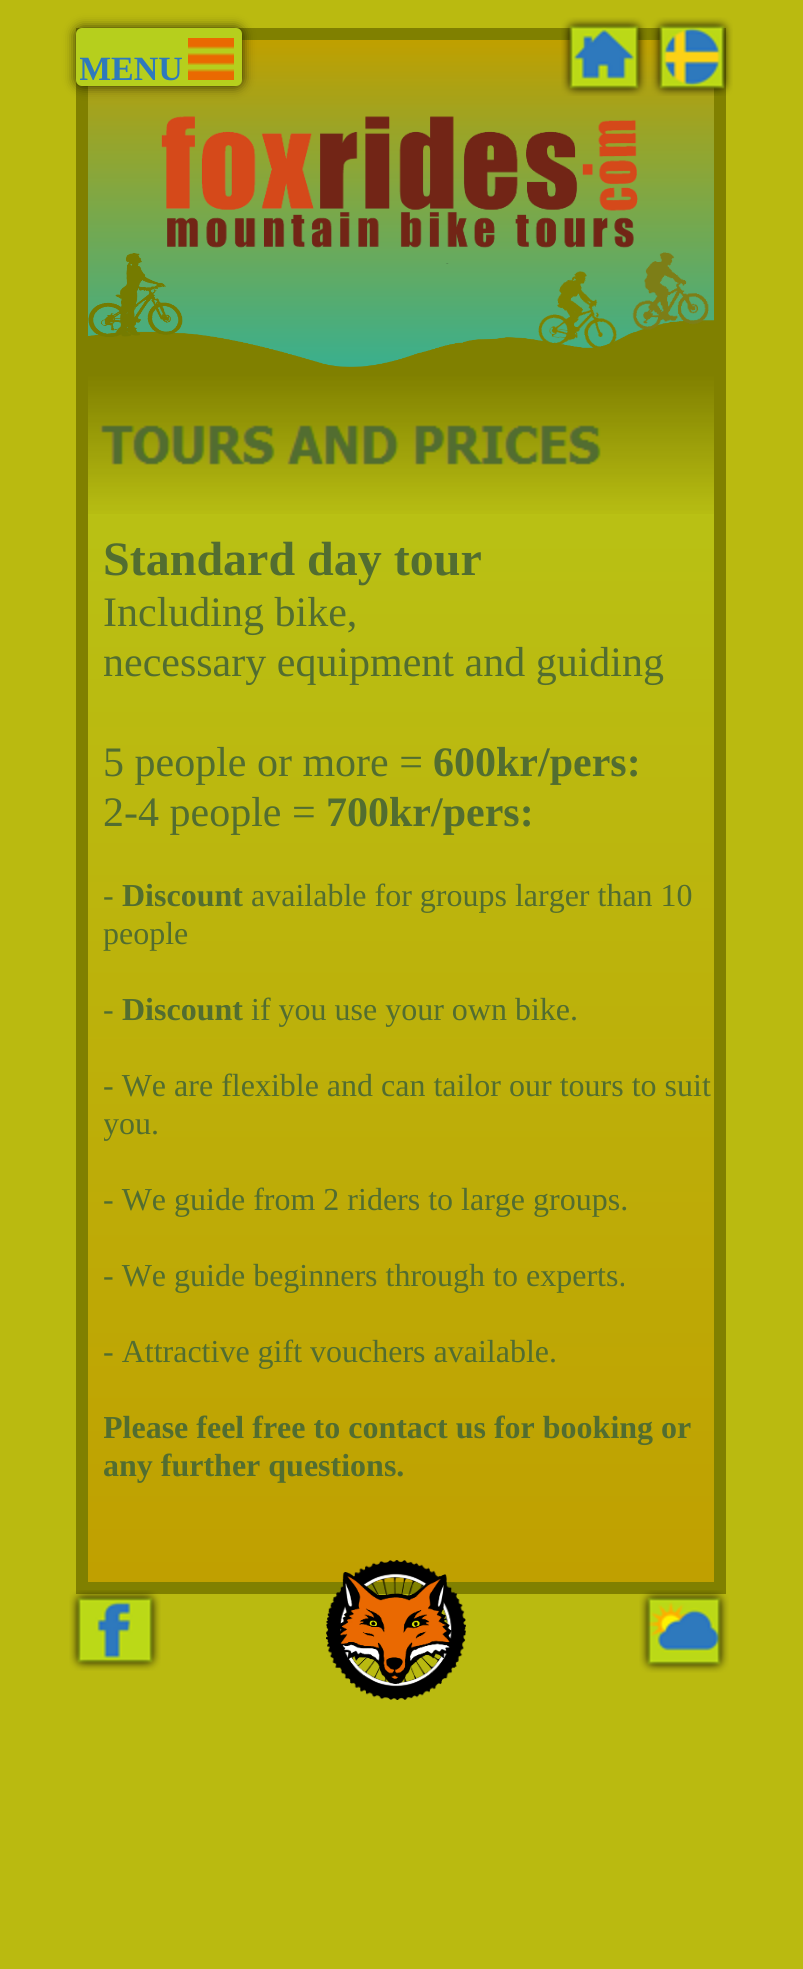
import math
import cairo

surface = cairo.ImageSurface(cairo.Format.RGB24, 803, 1969)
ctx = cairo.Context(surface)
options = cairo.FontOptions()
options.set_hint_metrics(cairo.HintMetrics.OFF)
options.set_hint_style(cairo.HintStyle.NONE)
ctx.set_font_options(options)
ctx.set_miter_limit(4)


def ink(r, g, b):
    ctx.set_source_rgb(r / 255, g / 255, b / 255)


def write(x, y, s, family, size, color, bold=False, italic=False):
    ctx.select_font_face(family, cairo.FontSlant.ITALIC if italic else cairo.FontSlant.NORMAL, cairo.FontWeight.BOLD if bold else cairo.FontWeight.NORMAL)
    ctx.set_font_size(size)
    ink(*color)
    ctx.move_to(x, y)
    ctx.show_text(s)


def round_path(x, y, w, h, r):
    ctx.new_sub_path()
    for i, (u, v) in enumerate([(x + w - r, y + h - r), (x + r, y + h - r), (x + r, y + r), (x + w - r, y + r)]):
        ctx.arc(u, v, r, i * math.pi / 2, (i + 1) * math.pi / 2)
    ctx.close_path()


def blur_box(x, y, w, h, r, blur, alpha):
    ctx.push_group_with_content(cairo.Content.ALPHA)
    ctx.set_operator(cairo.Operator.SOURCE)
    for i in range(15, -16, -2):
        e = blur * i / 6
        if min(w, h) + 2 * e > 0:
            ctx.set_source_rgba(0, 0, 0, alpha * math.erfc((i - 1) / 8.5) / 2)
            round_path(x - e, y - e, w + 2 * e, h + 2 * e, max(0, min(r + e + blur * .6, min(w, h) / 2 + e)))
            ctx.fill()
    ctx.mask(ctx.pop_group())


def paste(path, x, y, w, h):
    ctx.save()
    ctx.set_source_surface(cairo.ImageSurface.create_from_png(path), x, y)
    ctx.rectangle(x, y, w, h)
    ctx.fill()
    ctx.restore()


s1 = dict(family="Liberation Serif", size=34, color=(46, 121, 189), bold=True)
s2 = dict(family="Liberation Serif", size=48, color=(82, 109, 48), bold=True)
s3 = dict(family="Liberation Serif", size=42, color=(82, 109, 48))
s4 = dict(family="Liberation Serif", size=42, color=(82, 109, 48), bold=True)
s5 = dict(family="Liberation Serif", size=32, color=(82, 109, 48))
s6 = dict(family="Liberation Serif", size=32, color=(82, 109, 48), bold=True)

ink(186, 186, 16)
ctx.paint()
gradient = cairo.LinearGradient(401, 1582, 401, 40)
gradient.add_color_stop_rgba(0, 0.753, 0.627, 0, 1)
gradient.add_color_stop_rgba(1, 0.714, 0.812, 0.114, 1)
ctx.set_source(gradient)
ctx.rectangle(88, 514, 626, 1068)
ctx.fill()
ctx.rectangle(82, 34, 638, 1554)
ink(128, 128, 0)
ctx.set_line_width(12)
ctx.stroke()
paste("pic4.png", 88, 40, 626, 327)
ink(0, 0, 0)
blur_box(76, 28, 166, 58, 6, 6, 0.78)
ink(182, 207, 29)
round_path(76, 28, 166, 58, 6)
ctx.fill()
paste("pic1.png", 188, 38, 46, 42)
paste("pic2.png", 561, 17, 86, 79)
paste("pic3.png", 651, 17, 82, 79)
ctx.save()
ctx.rectangle(80, 50, 180, 52)
ctx.clip()
write(79, 80, "MENU", **s1)
ctx.restore()
paste("pic5.png", 161, 116, 477, 148)
paste("pic9.png", 88, 320, 626, 52)
paste("pic6.png", 88, 253, 95, 84)
paste("pic7.png", 538, 271, 79, 77)
paste("pic8.png", 632, 252, 77, 78)
paste("pic10.png", 88, 372, 626, 142)
write(103, 575, "Standard day tour", **s2)
write(103, 626, "Including bike,", **s3)
write(103, 676, "necessary equipment and guiding", **s3)
write(103, 776, "5 people or more =", **s3)
write(433, 776, "600kr/pers:", **s4)
write(103, 826, "2-4 people =", **s3)
write(326, 826, "700kr/pers:", **s4)
write(103, 906, "-", **s5)
write(122, 906, "Discount", **s6)
write(251, 906, "available for groups larger than 10", **s5)
write(103, 944, "people", **s5)
write(103, 1020, "-", **s5)
write(122, 1020, "Discount", **s6)
write(251, 1020, "if you use your own bike.", **s5)
write(103, 1096, "- We are flexible and can tailor our tours to suit", **s5)
ctx.save()
ctx.rectangle(104, 296, 620, 1296)
ctx.clip()
write(103, 1134, "you.", **s5)
ctx.restore()
write(103, 1210, "- We guide from 2 riders to large groups.", **s5)
write(103, 1286, "- We guide beginners through to experts.", **s5)
write(103, 1362, "- Attractive gift vouchers available.", **s5)
ctx.save()
ctx.rectangle(104, 296, 620, 1296)
ctx.clip()
write(103, 1438, "Please feel free to contact us for booking or", **s6)
ctx.restore()
write(103, 1476, "any further questions.", **s6)
paste("pic11.png", 326, 1560, 140, 140)
paste("pic12.png", 69, 1590, 92, 81)
paste("pic13.png", 340, 1572, 112, 112)
paste("pic14.png", 639, 1590, 90, 83)
surface.write_to_png("screenshot.png")
